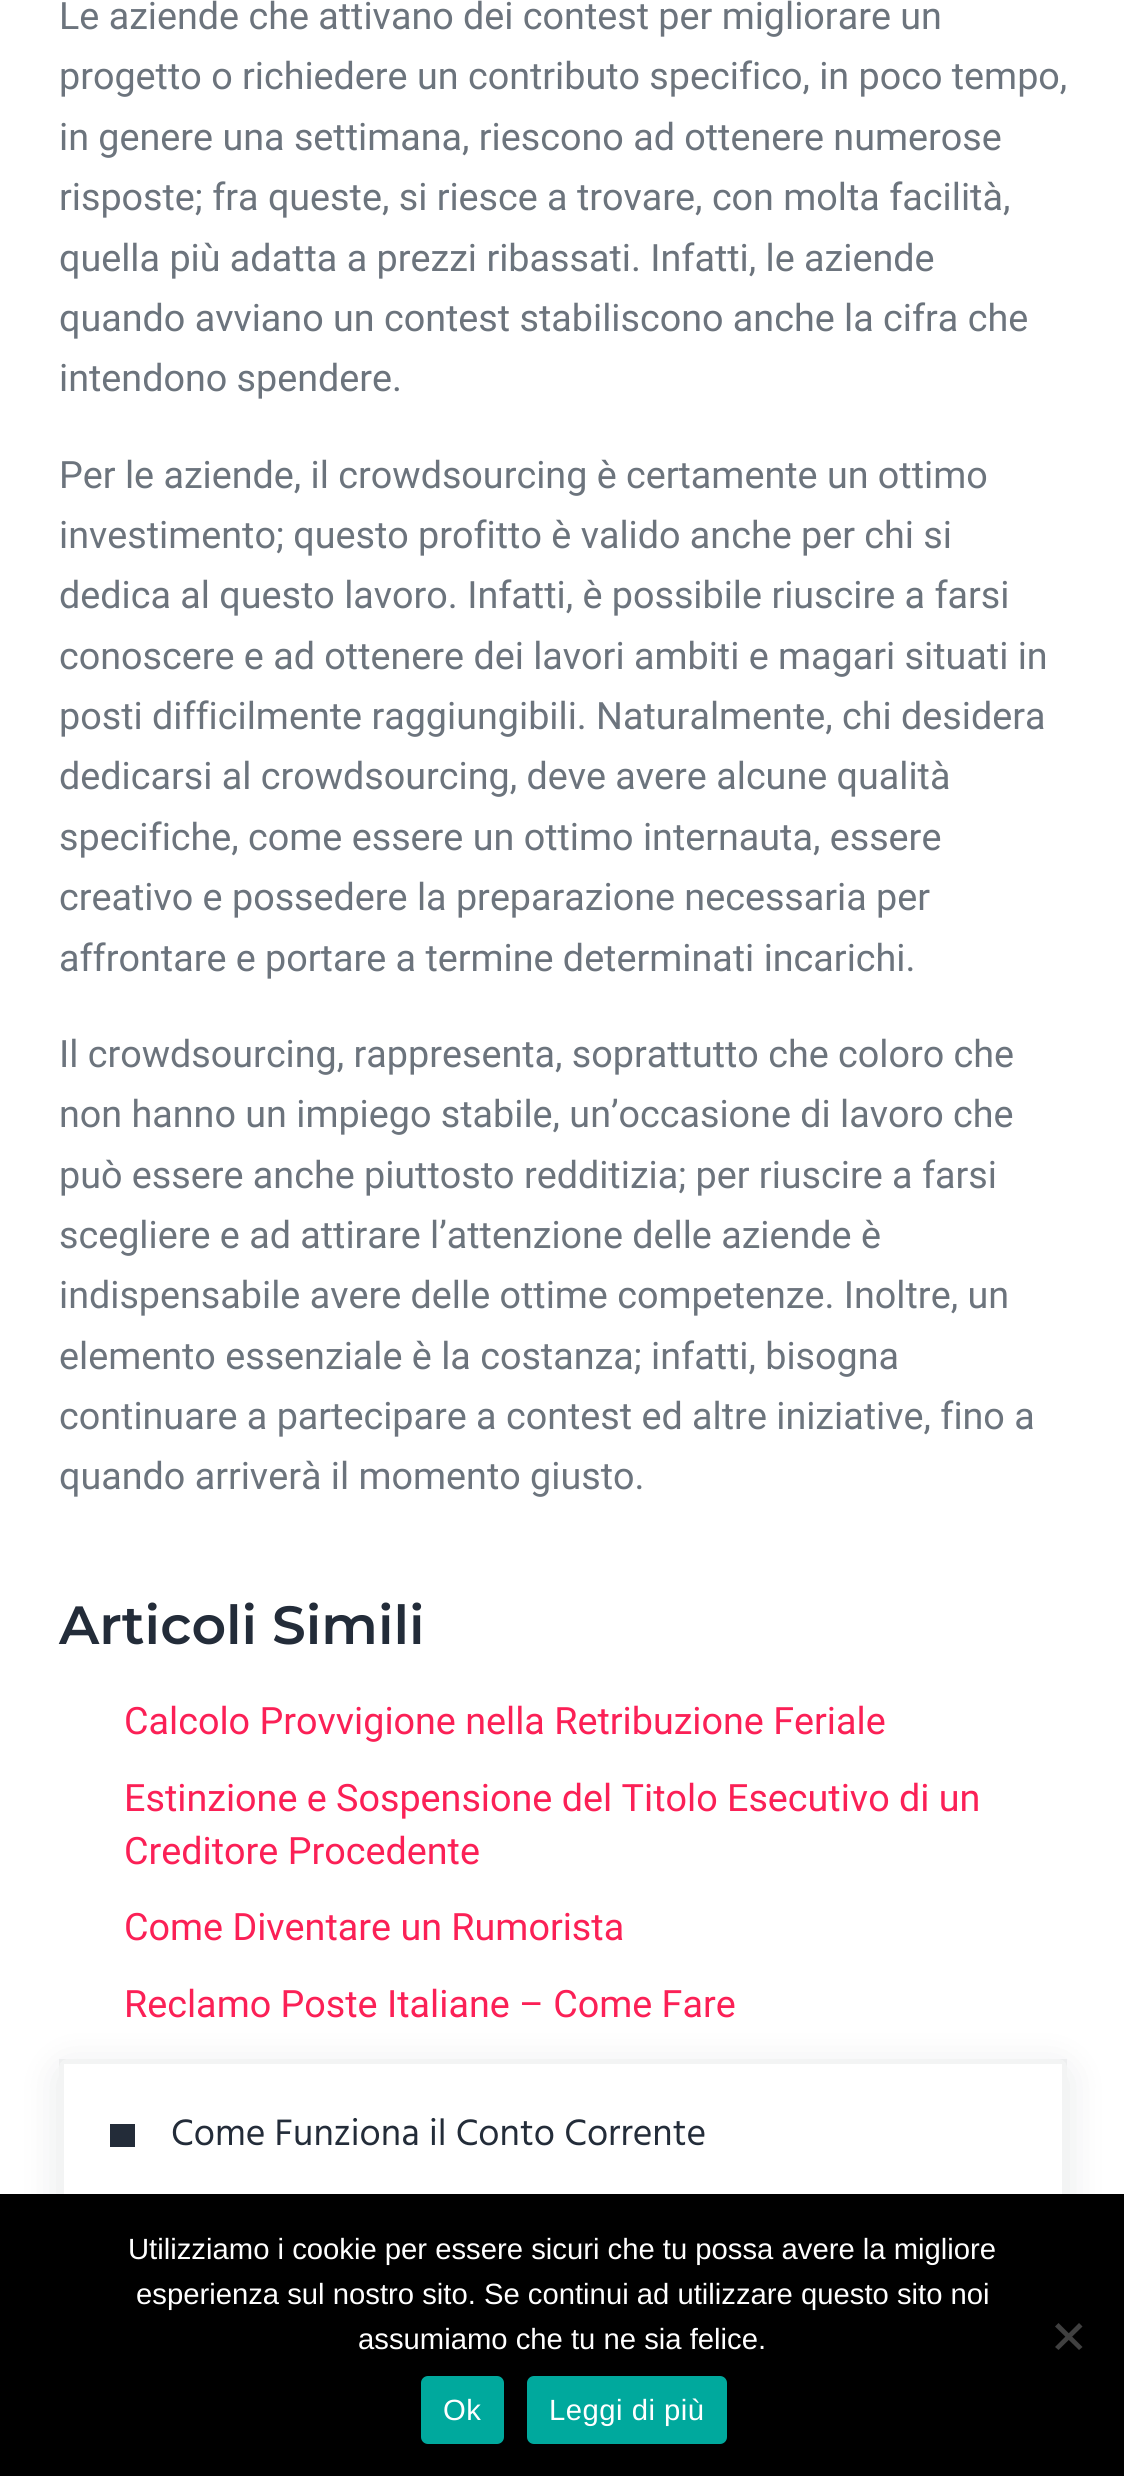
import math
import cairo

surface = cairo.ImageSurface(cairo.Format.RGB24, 1124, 2476)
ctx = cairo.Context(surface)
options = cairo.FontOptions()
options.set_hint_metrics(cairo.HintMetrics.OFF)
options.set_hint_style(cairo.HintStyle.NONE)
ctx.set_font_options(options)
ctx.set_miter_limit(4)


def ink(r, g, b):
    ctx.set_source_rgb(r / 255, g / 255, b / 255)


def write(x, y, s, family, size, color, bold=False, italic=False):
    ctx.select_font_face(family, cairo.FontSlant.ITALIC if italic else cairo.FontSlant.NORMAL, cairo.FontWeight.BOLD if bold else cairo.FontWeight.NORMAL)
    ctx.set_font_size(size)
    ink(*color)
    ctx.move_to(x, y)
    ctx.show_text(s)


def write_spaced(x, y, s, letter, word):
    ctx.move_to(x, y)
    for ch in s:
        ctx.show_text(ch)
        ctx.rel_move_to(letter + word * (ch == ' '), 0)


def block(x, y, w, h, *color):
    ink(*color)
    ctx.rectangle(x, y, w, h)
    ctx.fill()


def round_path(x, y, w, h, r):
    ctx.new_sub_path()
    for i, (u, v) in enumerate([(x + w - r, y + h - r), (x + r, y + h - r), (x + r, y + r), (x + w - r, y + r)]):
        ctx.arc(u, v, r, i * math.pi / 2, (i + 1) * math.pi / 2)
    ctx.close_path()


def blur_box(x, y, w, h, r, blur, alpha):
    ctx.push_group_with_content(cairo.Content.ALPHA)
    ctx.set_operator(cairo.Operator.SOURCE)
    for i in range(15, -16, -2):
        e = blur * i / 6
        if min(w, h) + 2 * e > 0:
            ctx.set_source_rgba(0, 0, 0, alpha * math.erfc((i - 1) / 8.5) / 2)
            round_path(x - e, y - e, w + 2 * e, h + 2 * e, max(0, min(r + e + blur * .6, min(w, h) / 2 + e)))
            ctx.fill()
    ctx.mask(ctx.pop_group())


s1 = dict(family="Roboto", size=37.7, color=(108, 116, 125))
s2 = dict(family="Montserrat Thin", size=53.75, color=(35, 44, 57))
s3 = dict(family="Roboto", size=37.7, color=(251, 32, 86))
s4 = dict(family="Hind", size=37.7, color=(35, 44, 57))
s5 = dict(family="Liberation Sans", size=29.25, color=(255, 255, 255))

ink(255, 255, 255)
ctx.paint()
write(59, 29, "Le aziende che attivano dei contest per migliorare un", **s1)
write(59, 89, "progetto o richiedere un contributo specifico, in poco tempo,", **s1)
write(59, 150, "in genere una settimana, riescono ad ottenere numerose", **s1)
write(59, 210, "risposte; fra queste, si riesce a trovare, con molta facilità,", **s1)
write(59, 271, "quella più adatta a prezzi ribassati. Infatti, le aziende", **s1)
write(59, 331, "quando avviano un contest stabiliscono anche la cifra che", **s1)
write(59, 391, "intendono spendere.", **s1)
write(59, 488, "Per le aziende, il crowdsourcing è certamente un ottimo", **s1)
write(59, 548, "investimento; questo profitto è valido anche per chi si", **s1)
write(59, 608, "dedica al questo lavoro. Infatti, è possibile riuscire a farsi", **s1)
write(59, 669, "conoscere e ad ottenere dei lavori ambiti e magari situati in", **s1)
write(59, 729, "posti difficilmente raggiungibili. Naturalmente, chi desidera", **s1)
write(59, 789, "dedicarsi al crowdsourcing, deve avere alcune qualità", **s1)
write(59, 850, "specifiche, come essere un ottimo internauta, essere", **s1)
write(59, 910, "creativo e possedere la preparazione necessaria per", **s1)
write(59, 971, "affrontare e portare a termine determinati incarichi.", **s1)
write(59, 1067, "Il crowdsourcing, rappresenta, soprattutto che coloro che", **s1)
write(59, 1127, "non hanno un impiego stabile, un’occasione di lavoro che", **s1)
write(59, 1188, "può essere anche piuttosto redditizia; per riuscire a farsi", **s1)
write(59, 1248, "scegliere e ad attirare l’attenzione delle aziende è", **s1)
write(59, 1308, "indispensabile avere delle ottime competenze. Inoltre, un", **s1)
write(59, 1369, "elemento essenziale è la costanza; infatti, bisogna", **s1)
write(59, 1429, "continuare a partecipare a contest ed altre iniziative, fino a", **s1)
write(59, 1489, "quando arriverà il momento giusto.", **s1)
write(59, 1644, "Articoli Simili", **s2)
write(124, 1734, "Calcolo Provvigione nella Retribuzione Feriale", **s3)
write(124, 1811, "Estinzione e Sospensione del Titolo Esecutivo di un", **s3)
write(124, 1864, "Creditore Procedente", **s3)
write(124, 1940, "Come Diventare un Rumorista", **s3)
write(124, 2017, "Reclamo Poste Italiane – Come Fare", **s3)
ctx.save()
ctx.set_fill_rule(cairo.FillRule.EVEN_ODD)
ctx.new_path()
ctx.move_to(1, 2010)
ctx.line_to(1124, 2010)
ctx.line_to(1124, 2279)
ctx.line_to(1, 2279)
ctx.close_path()
ctx.move_to(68, 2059)
ctx.line_to(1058, 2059)
ctx.curve_to(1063, 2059, 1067, 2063, 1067, 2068)
ctx.line_to(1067, 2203)
ctx.curve_to(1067, 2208, 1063, 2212, 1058, 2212)
ctx.line_to(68, 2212)
ctx.curve_to(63, 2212, 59, 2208, 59, 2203)
ctx.line_to(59, 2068)
ctx.curve_to(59, 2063, 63, 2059, 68, 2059)
ctx.close_path()
ctx.clip()
ink(10, 20, 30)
blur_box(59, 2068, 1008, 153, 9, 19, 0.1)
ctx.restore()
ctx.rectangle(61.5, 2061.5, 1003, 148)
ctx.set_source_rgba(0.039, 0.078, 0.118, 0.05)
ctx.set_line_width(5)
ctx.stroke()
block(110, 2124, 25, 23, 35, 44, 57)
write(171, 2145, "Come Funziona il Conto Corrente", **s4)
block(0, 2194, 1124, 282, 0, 0, 0)
write(128, 2259, "Utilizziamo i cookie per essere sicuri che tu possa avere la migliore", **s5)
write(136, 2304, "esperienza sul nostro sito. Se continui ad utilizzare questo sito noi", **s5)
write(358, 2349, "assumiamo che tu ne sia felice.", **s5)
ink(64, 64, 64)
ctx.new_path()
ctx.move_to(1079, 2323)
ctx.line_to(1082.5, 2326.5)
ctx.line_to(1058.5, 2350)
ctx.line_to(1055, 2347)
ctx.close_path()
ctx.fill()
ctx.new_path()
ctx.move_to(1055, 2326.5)
ctx.line_to(1058.5, 2323)
ctx.line_to(1082.5, 2347)
ctx.line_to(1079, 2350)
ctx.close_path()
ctx.fill()
ink(0, 169, 157)
round_path(421, 2376, 83, 68, 7)
ctx.fill()
ink(255, 255, 255)
write_spaced(443, 2420, "Ok", 0.5, 0)
ink(0, 169, 157)
round_path(527, 2376, 200, 68, 7)
ctx.fill()
ink(255, 255, 255)
write_spaced(549, 2420, "Leggi di più", 0.5, 0)
surface.write_to_png("screenshot.png")
